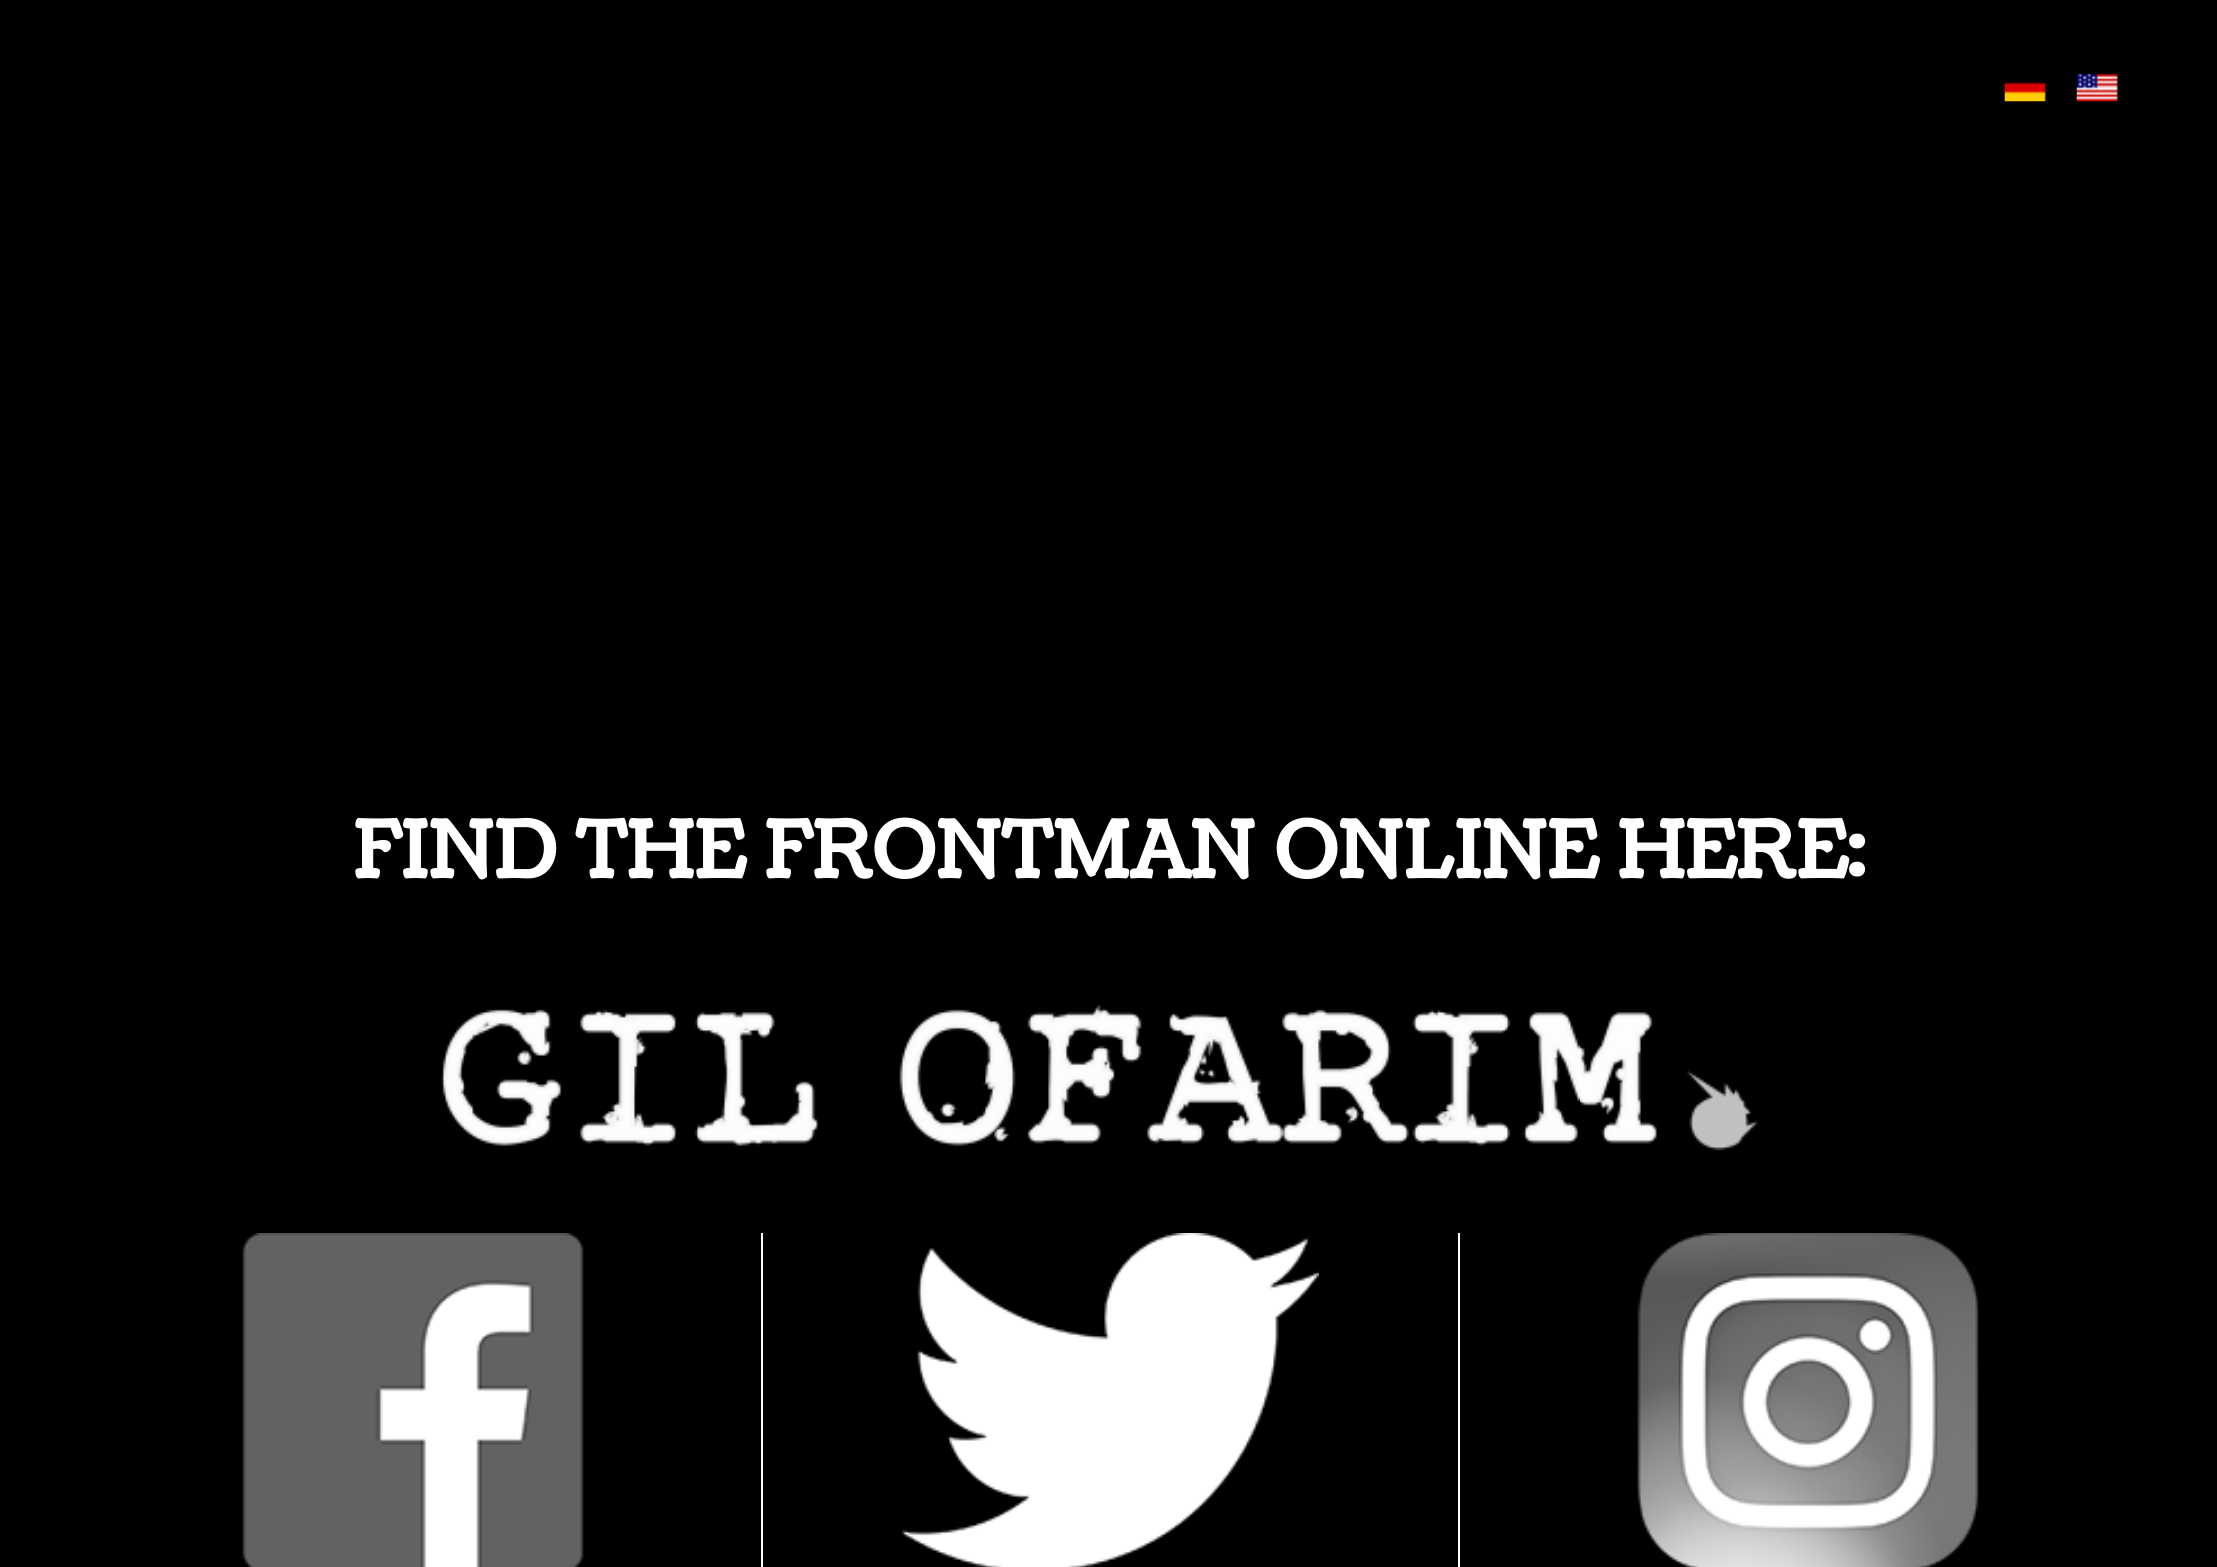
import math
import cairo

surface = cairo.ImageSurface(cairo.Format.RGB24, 2217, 1567)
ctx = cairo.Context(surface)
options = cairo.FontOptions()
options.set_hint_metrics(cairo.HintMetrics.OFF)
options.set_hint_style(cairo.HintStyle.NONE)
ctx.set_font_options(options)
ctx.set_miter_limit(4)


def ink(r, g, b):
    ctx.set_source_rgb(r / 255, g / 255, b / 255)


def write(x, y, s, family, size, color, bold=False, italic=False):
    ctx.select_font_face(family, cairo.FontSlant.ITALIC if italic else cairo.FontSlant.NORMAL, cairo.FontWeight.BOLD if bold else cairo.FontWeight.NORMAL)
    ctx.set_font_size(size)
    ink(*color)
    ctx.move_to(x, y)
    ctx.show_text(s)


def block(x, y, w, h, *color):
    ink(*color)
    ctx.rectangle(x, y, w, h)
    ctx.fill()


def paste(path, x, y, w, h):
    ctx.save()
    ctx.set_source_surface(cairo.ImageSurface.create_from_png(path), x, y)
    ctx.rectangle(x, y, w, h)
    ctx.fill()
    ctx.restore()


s1 = dict(family="Coustard", size=78.75, color=(255, 255, 255), bold=True)

ink(0, 0, 0)
ctx.paint()
paste("pic1.png", 2004, 82, 42, 20)
paste("pic2.png", 2076, 74, 42, 28)
write(353, 878, "FIND THE FRONTMAN ONLINE HERE:", **s1)
paste("pic3.png", 441, 1005, 1317, 146)
paste("pic4.png", 242, 1233, 342, 334)
block(761, 1233, 2, 334, 255, 255, 255)
paste("pic5.png", 901, 1233, 418, 334)
block(1458, 1233, 2, 334, 255, 255, 255)
paste("pic6.png", 1637, 1233, 342, 334)
surface.write_to_png("screenshot.png")
